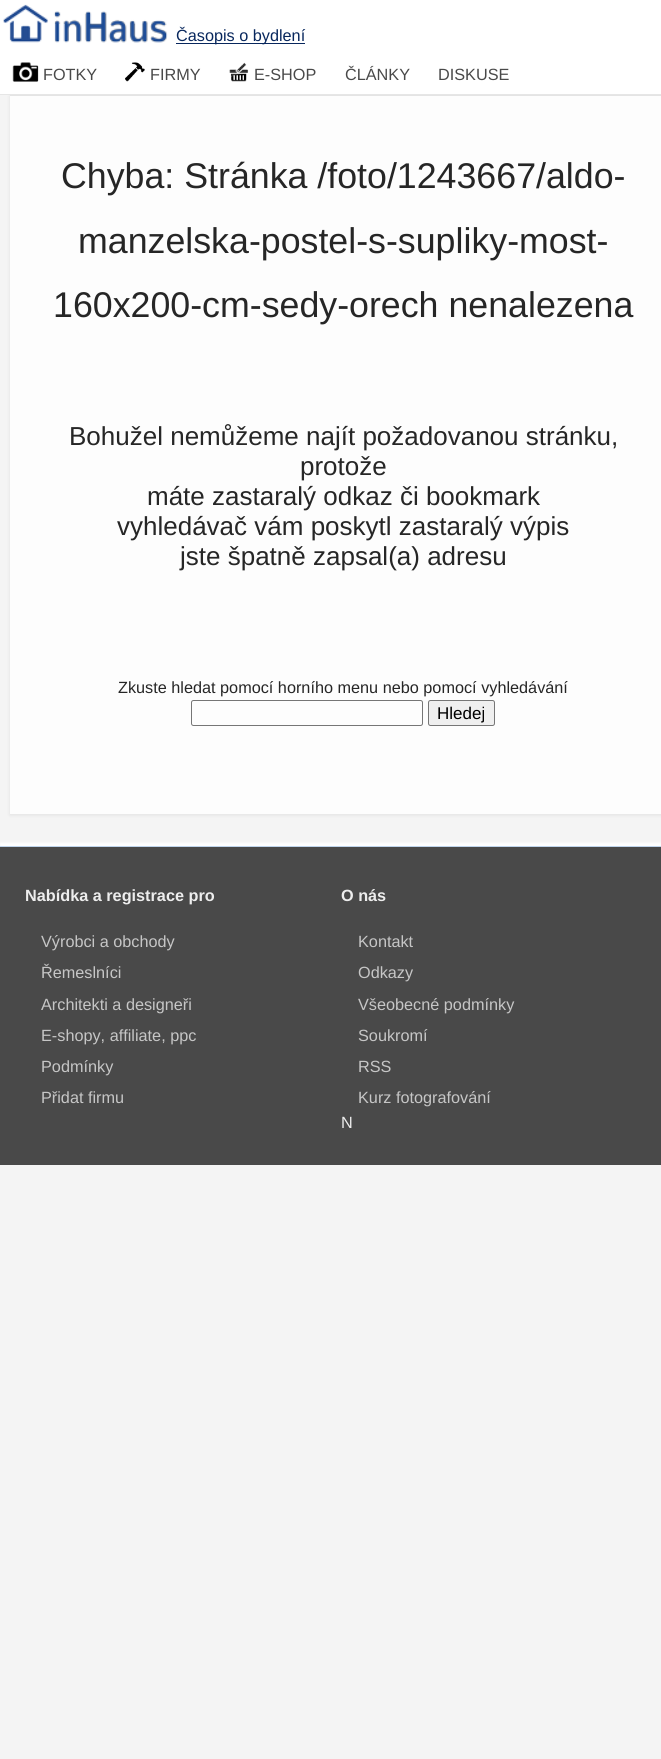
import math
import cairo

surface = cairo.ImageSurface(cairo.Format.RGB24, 661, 1759)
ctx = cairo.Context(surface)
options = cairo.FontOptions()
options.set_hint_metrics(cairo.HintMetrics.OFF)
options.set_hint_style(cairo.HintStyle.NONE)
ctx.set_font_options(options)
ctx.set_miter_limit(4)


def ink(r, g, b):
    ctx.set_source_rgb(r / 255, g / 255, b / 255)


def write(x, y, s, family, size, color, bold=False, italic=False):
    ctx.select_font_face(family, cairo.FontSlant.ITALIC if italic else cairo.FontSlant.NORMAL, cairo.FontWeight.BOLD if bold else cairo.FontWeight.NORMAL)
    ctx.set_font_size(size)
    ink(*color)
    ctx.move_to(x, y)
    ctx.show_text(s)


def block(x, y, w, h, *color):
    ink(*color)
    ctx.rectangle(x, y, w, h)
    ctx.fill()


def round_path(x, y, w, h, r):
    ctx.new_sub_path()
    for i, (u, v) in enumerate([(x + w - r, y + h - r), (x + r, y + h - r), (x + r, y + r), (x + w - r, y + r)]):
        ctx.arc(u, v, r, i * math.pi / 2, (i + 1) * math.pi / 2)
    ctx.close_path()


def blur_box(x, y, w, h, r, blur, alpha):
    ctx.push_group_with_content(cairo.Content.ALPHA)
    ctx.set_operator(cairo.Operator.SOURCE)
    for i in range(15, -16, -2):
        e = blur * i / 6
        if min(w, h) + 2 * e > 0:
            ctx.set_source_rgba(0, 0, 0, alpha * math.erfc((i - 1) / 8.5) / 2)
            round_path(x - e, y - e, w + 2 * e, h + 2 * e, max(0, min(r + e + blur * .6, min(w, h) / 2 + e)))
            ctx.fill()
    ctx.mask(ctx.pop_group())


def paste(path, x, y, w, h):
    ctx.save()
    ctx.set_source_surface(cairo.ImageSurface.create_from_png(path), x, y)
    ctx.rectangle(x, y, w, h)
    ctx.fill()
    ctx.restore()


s1 = dict(family="Liberation Sans", size=16.25, color=(8, 39, 93))
s2 = dict(family="Liberation Sans", size=16.25, color=(73, 73, 73))
s3 = dict(family="Liberation Sans", size=35.75, color=(38, 38, 38))
s4 = dict(family="Liberation Sans", size=26, color=(38, 38, 38))
s5 = dict(family="Liberation Sans", size=16.25, color=(38, 38, 38))
s6 = dict(family="Liberation Sans", size=17, color=(0, 0, 0))
s7 = dict(family="Liberation Sans", size=16.25, color=(237, 237, 237), bold=True)
s8 = dict(family="Liberation Sans", size=16.25, color=(198, 198, 198))
s9 = dict(family="Liberation Sans", size=16.25, color=(237, 237, 237))

ink(244, 244, 244)
ctx.paint()
ink(0, 0, 0)
blur_box(10, 96, 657, 719, 0, 2, 0.08)
block(0, 0, 661, 94, 255, 255, 255)
block(0, 94, 661, 1, 230, 230, 230)
paste("pic1.png", 3, 4, 165, 39)
block(176, 43, 129, 1, 8, 39, 93)
write(176, 41, "Časopis o bydlení", **s1)
paste("pic2.png", 12, 62, 27, 20)
write(43, 80, "FOTKY", **s2)
paste("pic3.png", 125, 62, 20, 20)
write(150, 80, "FIRMY", **s2)
paste("pic4.png", 229, 62, 20, 20)
write(254, 80, "E-SHOP", **s2)
write(345, 80, "ČLÁNKY", **s2)
write(438, 80, "DISKUSE", **s2)
block(10, 96, 651, 718, 253, 253, 253)
block(10, 95, 651, 1, 228, 228, 228)
write(61, 188, "Chyba: Stránka /foto/1243667/aldo-", **s3)
write(78, 253, "manzelska-postel-s-supliky-most-", **s3)
write(53, 317, "160x200-cm-sedy-orech nenalezena", **s3)
write(69, 445, "Bohužel nemůžeme najít požadovanou stránku,", **s4)
write(300, 475, "protože", **s4)
write(147, 505, "máte zastaralý odkaz či bookmark", **s4)
write(117, 535, "vyhledávač vám poskytl zastaralý výpis", **s4)
write(180, 565, "jste špatně zapsal(a) adresu", **s4)
write(118, 693, "Zkuste hledat pomocí horního menu nebo pomocí vyhledávání", **s5)
round_path(191.5, 700.5, 231, 25, 2)
ink(118, 118, 118)
ctx.set_line_width(1)
ctx.stroke()
ink(239, 239, 239)
round_path(428.5, 700.5, 66, 25, 2)
ctx.fill_preserve()
ink(118, 118, 118)
ctx.stroke()
write(437, 719, "Hledej", **s6)
ink(255, 255, 255)
blur_box(0, 843, 661, 318, 0, 1, 1)
block(0, 847, 661, 318, 73, 73, 73)
block(0, 846, 661, 1, 191, 212, 235)
write(25, 901, "Nabídka a registrace pro", **s7)
write(41, 947, "Výrobci a obchody", **s8)
write(41, 978, "Řemeslníci", **s8)
write(41, 1010, "Architekti a designeři", **s8)
write(41, 1041, "E-shopy, affiliate, ppc", **s8)
write(41, 1072, "Podmínky", **s8)
write(41, 1103, "Přidat firmu", **s8)
write(341, 901, "O nás", **s7)
write(358, 947, "Kontakt", **s8)
write(358, 978, "Odkazy", **s8)
write(358, 1010, "Všeobecné podmínky", **s8)
write(358, 1041, "Soukromí", **s8)
write(358, 1072, "RSS", **s8)
write(358, 1103, "Kurz fotografování", **s8)
write(341, 1128, "N", **s9)
surface.write_to_png("screenshot.png")
